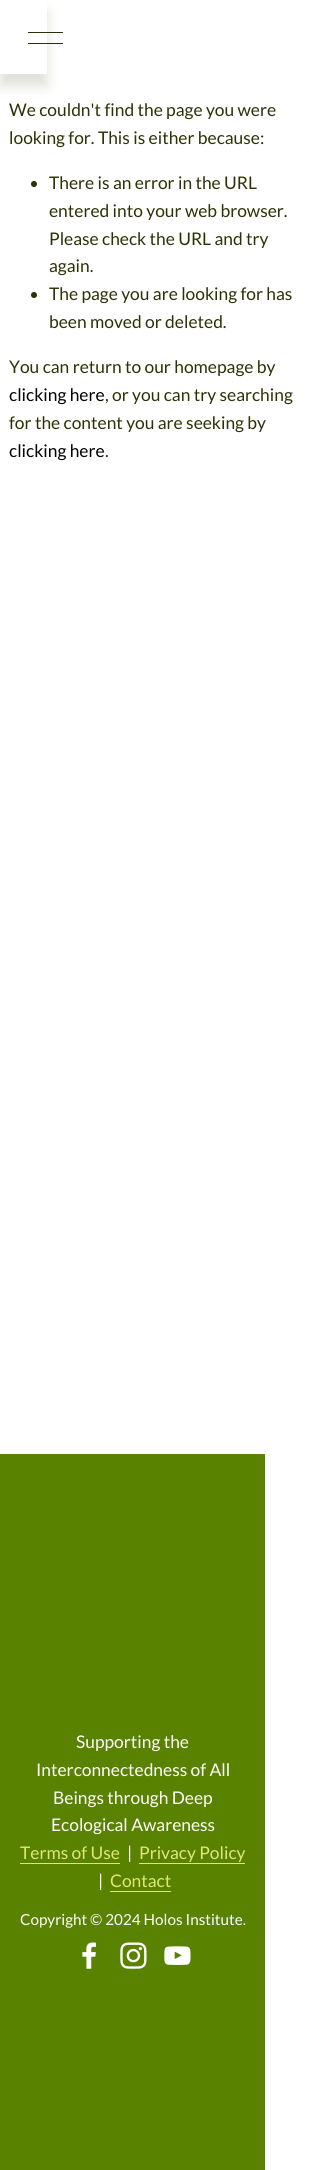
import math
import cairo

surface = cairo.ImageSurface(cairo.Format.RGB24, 312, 2170)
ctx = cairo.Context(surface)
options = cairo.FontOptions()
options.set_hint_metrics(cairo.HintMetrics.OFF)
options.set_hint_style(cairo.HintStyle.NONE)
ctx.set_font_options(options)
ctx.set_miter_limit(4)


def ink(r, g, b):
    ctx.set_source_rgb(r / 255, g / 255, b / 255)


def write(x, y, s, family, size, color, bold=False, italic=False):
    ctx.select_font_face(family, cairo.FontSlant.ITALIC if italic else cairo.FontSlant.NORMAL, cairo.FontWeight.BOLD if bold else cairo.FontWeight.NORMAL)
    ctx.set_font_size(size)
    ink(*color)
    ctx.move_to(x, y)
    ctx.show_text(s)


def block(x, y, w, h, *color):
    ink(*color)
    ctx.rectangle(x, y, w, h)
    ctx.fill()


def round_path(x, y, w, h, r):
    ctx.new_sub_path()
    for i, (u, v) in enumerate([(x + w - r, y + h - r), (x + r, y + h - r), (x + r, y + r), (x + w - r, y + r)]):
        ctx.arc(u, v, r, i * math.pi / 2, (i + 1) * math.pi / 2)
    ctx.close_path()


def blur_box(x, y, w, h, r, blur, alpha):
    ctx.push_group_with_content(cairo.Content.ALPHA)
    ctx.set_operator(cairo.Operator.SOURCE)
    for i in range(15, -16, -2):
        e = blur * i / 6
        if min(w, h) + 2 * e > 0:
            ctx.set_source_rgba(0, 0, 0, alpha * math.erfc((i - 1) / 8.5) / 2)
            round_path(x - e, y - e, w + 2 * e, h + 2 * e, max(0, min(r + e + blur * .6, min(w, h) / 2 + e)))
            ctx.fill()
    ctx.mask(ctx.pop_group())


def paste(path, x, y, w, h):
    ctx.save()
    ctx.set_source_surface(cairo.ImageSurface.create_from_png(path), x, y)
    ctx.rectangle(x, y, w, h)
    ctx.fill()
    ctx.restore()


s1 = dict(family="Lato", size=17.4, color=(46, 49, 5))
s2 = dict(family="Lato", size=17.4, color=(0, 0, 0))
s3 = dict(family="Lato", size=17.4, color=(255, 255, 255))
s4 = dict(family="Lato", size=17.4, color=(224, 231, 121))
s5 = dict(family="Lato", size=15.25, color=(255, 255, 255))

ink(255, 255, 255)
ctx.paint()
ctx.save()
ctx.set_fill_rule(cairo.FillRule.EVEN_ODD)
ctx.new_path()
ctx.move_to(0, 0)
ctx.line_to(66, 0)
ctx.line_to(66, 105)
ctx.line_to(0, 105)
ctx.close_path()
ctx.move_to(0, 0)
ctx.line_to(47, 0)
ctx.line_to(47, 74)
ctx.line_to(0, 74)
ctx.close_path()
ctx.clip()
ink(224, 224, 218)
blur_box(0, 12, 47, 74, 0, 6, 1)
ctx.restore()
block(28, 32, 35, 1, 46, 49, 5)
block(28, 43, 35, 1, 46, 49, 5)
write(9, 116, "We couldn't find the page you were", **s1)
write(9, 144, "looking for. This is either because:", **s1)
ctx.new_path()
ctx.arc(34, 184, 3, 0, 2 * math.pi)
ctx.fill()
write(49, 189, "There is an error in the URL", **s1)
write(49, 217, "entered into your web browser.", **s1)
write(49, 245, "Please check the URL and try", **s1)
write(49, 272, "again.", **s1)
ctx.new_path()
ctx.arc(34, 295, 3, 0, 2 * math.pi)
ctx.fill()
write(49, 300, "The page you are looking for has", **s1)
write(49, 328, "been moved or deleted.", **s1)
write(9, 373, "You can return to our homepage by", **s1)
write(9, 401, "clicking here", **s2)
write(105, 401, ", or you can try searching", **s1)
write(9, 429, "for the content you are seeking by", **s1)
write(9, 457, "clicking here", **s2)
write(105, 457, ".", **s1)
block(0, 1454, 265, 716, 89, 130, 0)
write(76, 1748, "Supporting the", **s3)
write(36, 1776, "Interconnectedness of All", **s3)
write(53, 1804, "Beings through Deep", **s3)
write(51, 1831, "Ecological Awareness", **s3)
write(20, 1859, "Terms of Use", **s4)
block(20, 1863, 100, 1, 224, 231, 121)
write(127, 1859, "|", **s3)
write(139, 1859, "Privacy Policy", **s4)
block(139, 1863, 106, 1, 224, 231, 121)
write(98, 1887, "|", **s3)
write(110, 1887, "Contact", **s4)
block(110, 1891, 61, 1, 224, 231, 121)
write(20, 1925, "Copyright © 2024 Holos Institute.", **s5)
paste("pic1.png", 82, 1942, 14, 27)
paste("pic2.png", 120, 1942, 27, 27)
paste("pic3.png", 164, 1946, 27, 19)
surface.write_to_png("screenshot.png")
